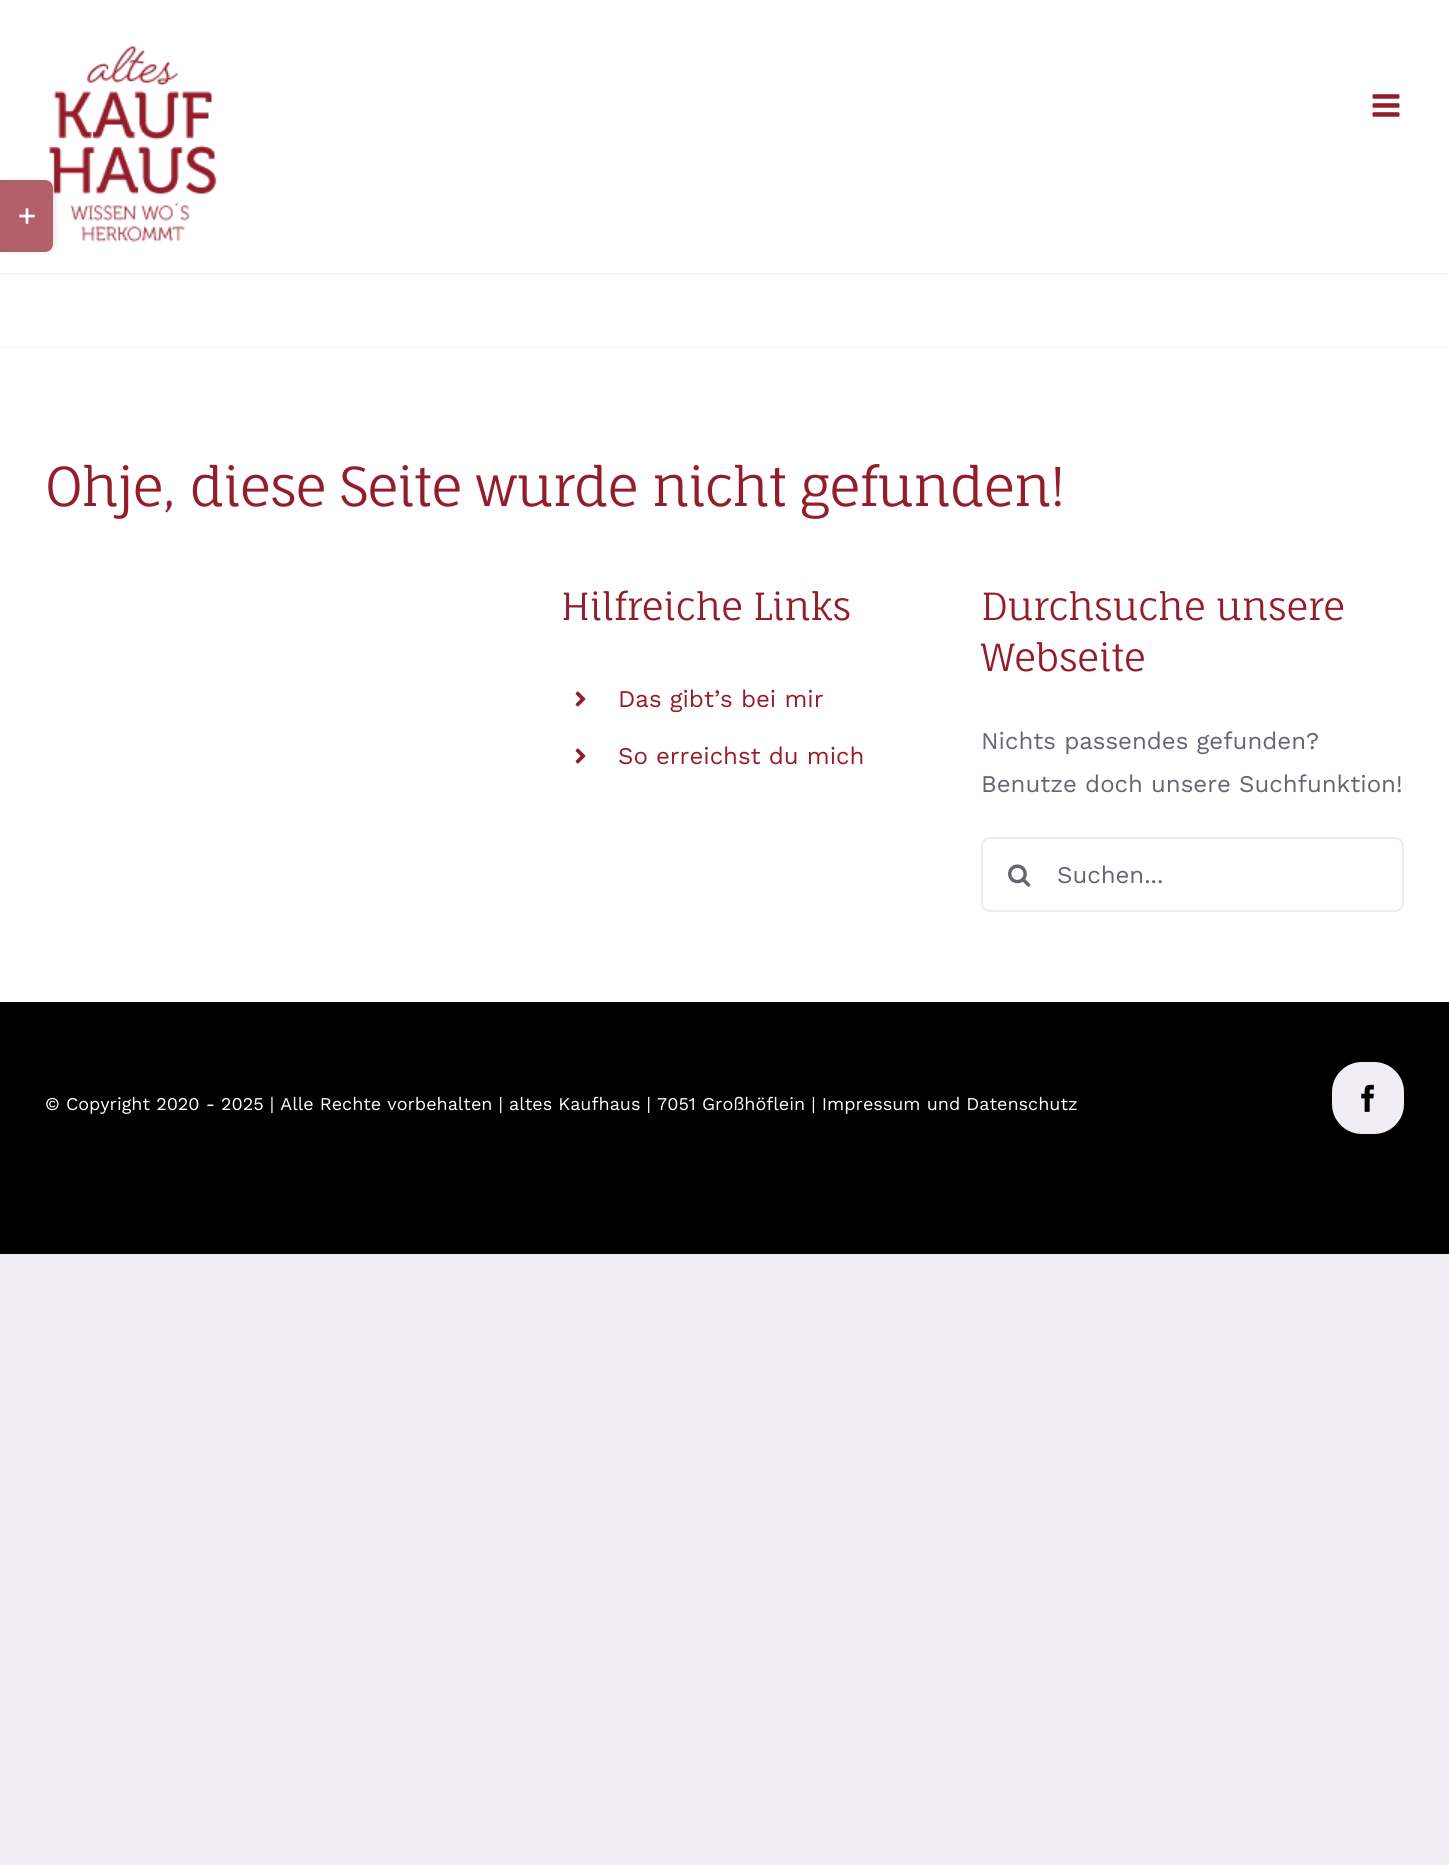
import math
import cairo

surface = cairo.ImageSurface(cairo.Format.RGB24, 1449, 1865)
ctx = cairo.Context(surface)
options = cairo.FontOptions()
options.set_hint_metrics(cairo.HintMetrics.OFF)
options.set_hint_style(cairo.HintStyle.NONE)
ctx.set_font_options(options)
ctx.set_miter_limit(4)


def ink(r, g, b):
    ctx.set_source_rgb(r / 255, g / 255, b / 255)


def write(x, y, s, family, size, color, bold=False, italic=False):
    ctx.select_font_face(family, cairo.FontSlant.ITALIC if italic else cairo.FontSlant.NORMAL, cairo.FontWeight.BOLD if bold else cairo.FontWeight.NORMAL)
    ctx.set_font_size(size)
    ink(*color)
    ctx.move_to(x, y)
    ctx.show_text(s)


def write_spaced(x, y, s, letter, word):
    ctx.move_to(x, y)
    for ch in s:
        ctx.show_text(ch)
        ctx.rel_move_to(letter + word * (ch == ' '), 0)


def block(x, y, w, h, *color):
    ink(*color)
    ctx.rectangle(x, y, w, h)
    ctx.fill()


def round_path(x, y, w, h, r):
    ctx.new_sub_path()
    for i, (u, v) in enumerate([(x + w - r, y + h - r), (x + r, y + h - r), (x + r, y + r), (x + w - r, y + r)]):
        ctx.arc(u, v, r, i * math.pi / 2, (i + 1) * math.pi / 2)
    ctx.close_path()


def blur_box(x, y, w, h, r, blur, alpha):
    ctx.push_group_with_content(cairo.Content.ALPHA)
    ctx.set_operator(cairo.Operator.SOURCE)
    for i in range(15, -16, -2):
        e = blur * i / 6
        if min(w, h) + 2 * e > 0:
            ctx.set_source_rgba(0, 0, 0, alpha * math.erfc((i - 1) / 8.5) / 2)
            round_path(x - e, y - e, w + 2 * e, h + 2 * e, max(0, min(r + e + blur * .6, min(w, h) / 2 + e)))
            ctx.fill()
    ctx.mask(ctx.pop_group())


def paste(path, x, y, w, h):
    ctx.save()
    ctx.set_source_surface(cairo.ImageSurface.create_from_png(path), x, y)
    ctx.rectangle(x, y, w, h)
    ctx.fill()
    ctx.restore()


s1 = dict(family="Work Sans", size=24, color=(148, 29, 44))
s2 = dict(family="Work Sans", size=24, color=(103, 99, 113))
s3 = dict(family="Work Sans", size=18, color=(255, 255, 255))

ink(240, 237, 245)
ctx.paint()
block(0, 0, 1449, 347, 255, 255, 255)
paste("pic2.png", 49, 46, 168, 196)
ctx.save()
ctx.set_fill_rule(cairo.FillRule.EVEN_ODD)
ctx.new_path()
ctx.move_to(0, 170)
ctx.line_to(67, 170)
ctx.line_to(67, 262)
ctx.line_to(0, 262)
ctx.close_path()
ctx.move_to(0, 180)
ctx.line_to(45, 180)
ctx.curve_to(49.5, 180, 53, 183.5, 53, 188)
ctx.line_to(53, 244)
ctx.curve_to(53, 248.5, 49.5, 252, 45, 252)
ctx.line_to(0, 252)
ctx.close_path()
ctx.clip()
ink(0, 0, 0)
blur_box(8, 183, 46, 66, 5, 4, 0.14)
ctx.restore()
ctx.set_source_rgba(0.58, 0.114, 0.173, 0.7)
ctx.new_path()
ctx.move_to(0, 180)
ctx.line_to(45, 180)
ctx.curve_to(49.5, 180, 53, 183.5, 53, 188)
ctx.line_to(53, 244)
ctx.curve_to(53, 248.5, 49.5, 252, 45, 252)
ctx.line_to(0, 252)
ctx.close_path()
ctx.fill()
paste("pic1.png", 19, 208, 16, 16)
paste("pic3.png", 1372, 94, 28, 23)
block(0, 273, 1449, 2, 248, 246, 250)
block(0, 347, 1449, 1, 248, 246, 250)
block(0, 348, 1449, 654, 255, 255, 255)
ctx.select_font_face("Fauna One")
ctx.set_font_size(53.5)
ink(148, 29, 44)
write_spaced(45, 506, "Ohje, diese Seite wurde nicht gefunden!", -1.5, 0)
ctx.set_font_size(37.5)
write_spaced(561, 620, "Hilfreiche Links", -0.5, 0)
paste("pic4.png", 575, 691, 11, 16)
write(618, 707, "Das gibt’s bei mir", **s1)
paste("pic4.png", 575, 748, 11, 16)
write(618, 764, "So erreichst du mich", **s1)
ctx.select_font_face("Fauna One")
ctx.set_font_size(37.5)
write_spaced(981, 620, "Durchsuche unsere", -0.5, 0)
write_spaced(981, 671, "Webseite", -0.5, 0)
write(981, 749, "Nichts passendes gefunden?", **s2)
write(981, 792, "Benutze doch unsere Suchfunktion!", **s2)
round_path(982, 838, 421, 73, 8)
ink(236, 236, 237)
ctx.stroke()
paste("pic5.png", 1008, 864, 23, 23)
write(1057, 883, "Suchen...", **s2)
block(0, 1002, 1449, 252, 0, 0, 0)
write(45, 1110, "© Copyright 2020 - 2025 | Alle Rechte vorbehalten | altes Kaufhaus | 7051 Großhöflein | Impressum und Datenschutz", **s3)
ink(240, 237, 245)
round_path(1333, 1063, 70, 70, 29)
ctx.fill_preserve()
ctx.stroke()
paste("pic6.png", 1361, 1084, 13, 28)
surface.write_to_png("screenshot.png")
